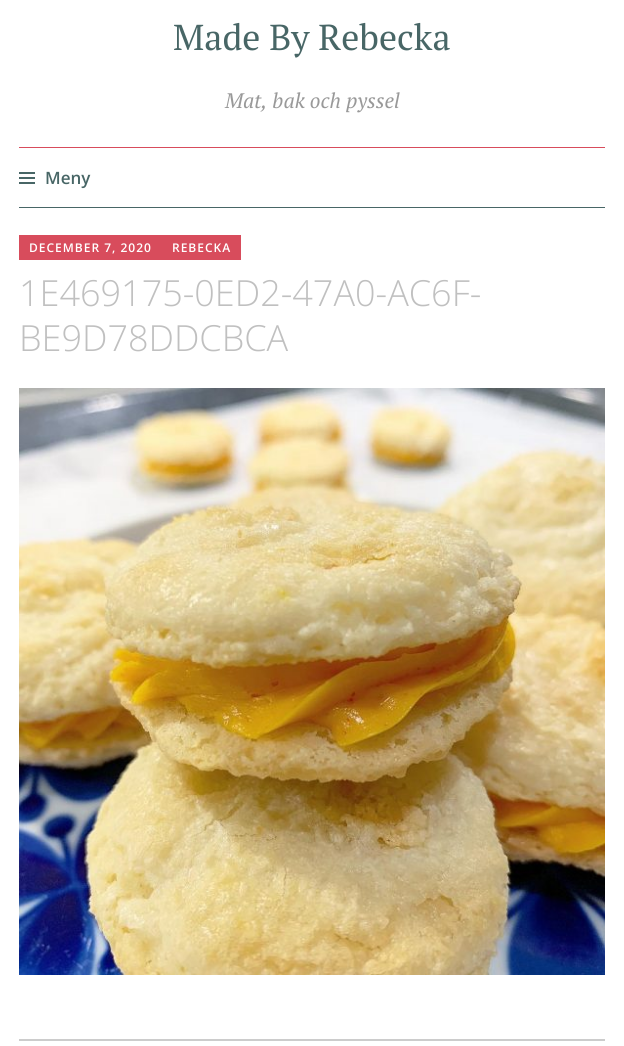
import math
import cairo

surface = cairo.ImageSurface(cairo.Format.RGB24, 624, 1046)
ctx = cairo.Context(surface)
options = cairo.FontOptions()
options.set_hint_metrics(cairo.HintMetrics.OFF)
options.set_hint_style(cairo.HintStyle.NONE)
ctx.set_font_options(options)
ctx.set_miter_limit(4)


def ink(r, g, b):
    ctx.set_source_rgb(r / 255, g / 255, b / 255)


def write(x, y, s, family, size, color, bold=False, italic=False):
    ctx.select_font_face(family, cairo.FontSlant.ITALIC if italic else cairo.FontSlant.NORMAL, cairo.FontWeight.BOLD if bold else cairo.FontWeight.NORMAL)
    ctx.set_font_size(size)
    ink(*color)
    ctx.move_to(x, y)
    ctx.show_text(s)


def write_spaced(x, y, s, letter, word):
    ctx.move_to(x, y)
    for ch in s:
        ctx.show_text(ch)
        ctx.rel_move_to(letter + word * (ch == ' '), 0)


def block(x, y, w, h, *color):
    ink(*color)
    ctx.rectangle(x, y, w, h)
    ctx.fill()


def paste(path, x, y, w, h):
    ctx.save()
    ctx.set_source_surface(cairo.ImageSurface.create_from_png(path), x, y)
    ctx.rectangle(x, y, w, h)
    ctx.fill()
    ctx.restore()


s1 = dict(family="PT Serif", size=36, color=(72, 102, 102))
s2 = dict(family="PT Serif", size=21, color=(153, 153, 153), italic=True)
s3 = dict(family="Open Sans SemiBold", size=17, color=(72, 102, 102))
s4 = dict(family="Open Sans Light", size=36, color=(192, 192, 192))

ink(255, 255, 255)
ctx.paint()
write(173, 50, "Made By Rebecka", **s1)
write(225, 108, "Mat, bak och pyssel", **s2)
block(19, 147, 586, 1, 216, 76, 92)
block(19, 207, 586, 1, 72, 102, 102)
paste("pic1.png", 19, 172, 16, 12)
write(45, 184, "Meny", **s3)
block(19, 235, 222, 25, 216, 76, 92)
ctx.set_font_size(12)
ink(255, 255, 255)
write_spaced(29, 252, "DECEMBER 7, 2020", 1, 0)
write_spaced(172, 252, "REBECKA", 1, 0)
write(19, 306, "1E469175-0ED2-47A0-AC6F-", **s4)
write(19, 351, "BE9D78DDCBCA", **s4)
paste("pic2.png", 19, 388, 586, 587)
block(19, 1039, 586, 2, 204, 204, 204)
surface.write_to_png("screenshot.png")
